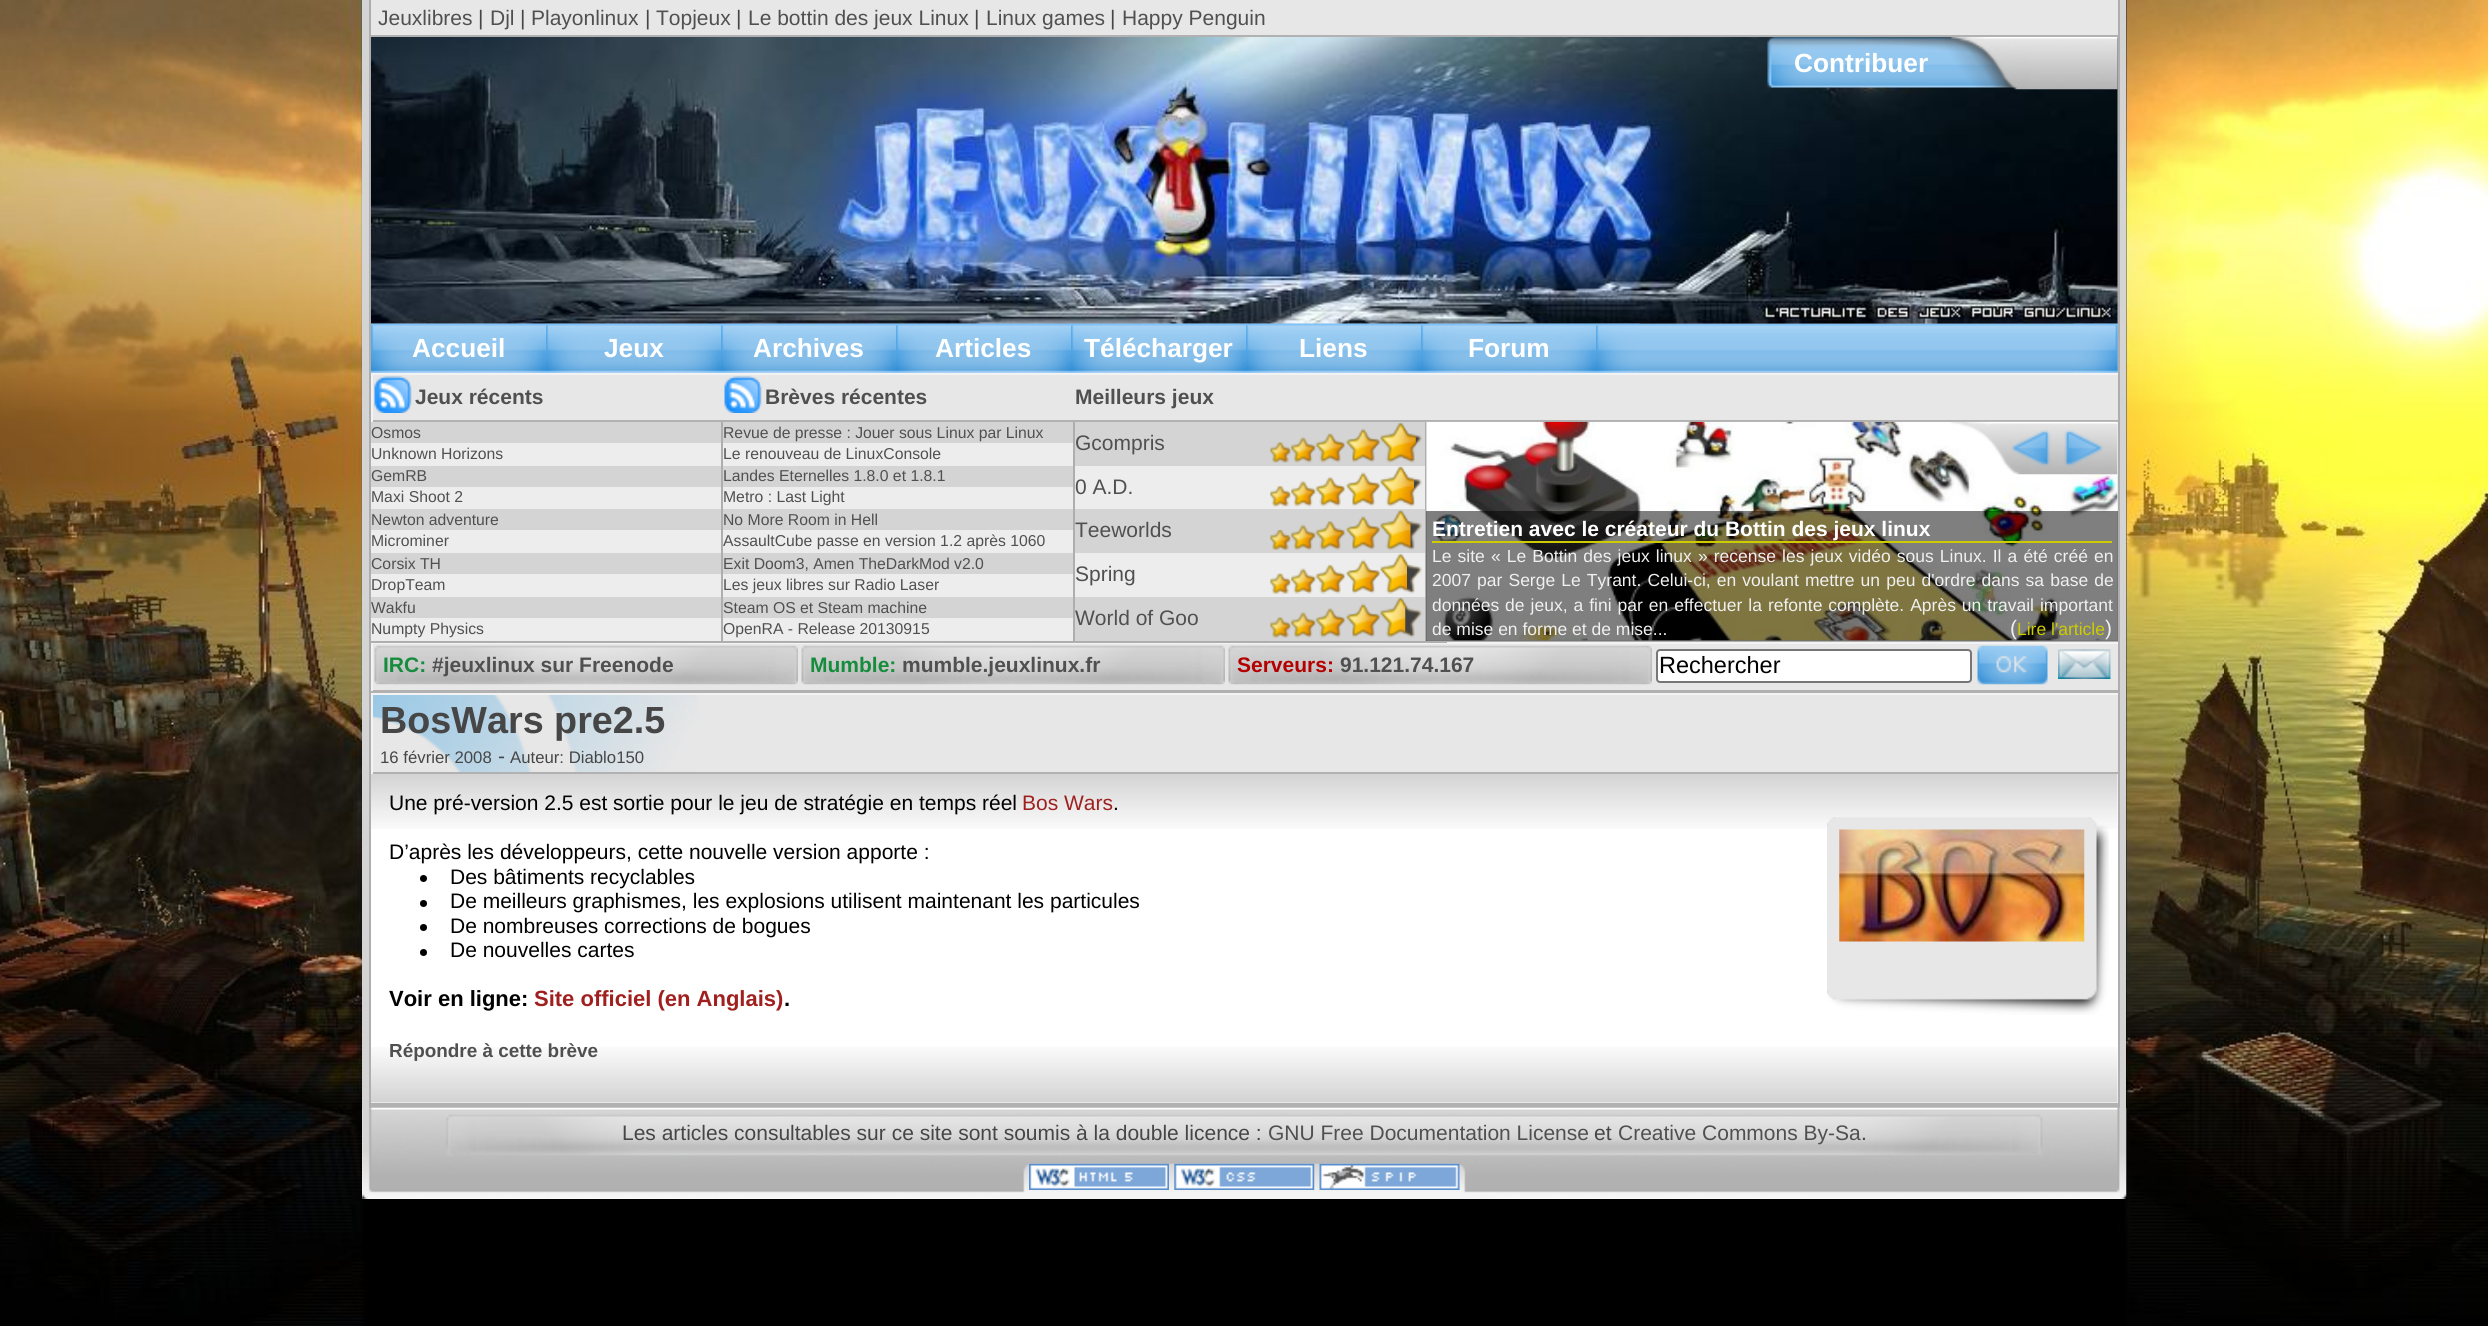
import math
import cairo

surface = cairo.ImageSurface(cairo.Format.RGB24, 2488, 1326)
ctx = cairo.Context(surface)
options = cairo.FontOptions()
options.set_hint_metrics(cairo.HintMetrics.OFF)
options.set_hint_style(cairo.HintStyle.NONE)
ctx.set_font_options(options)
ctx.set_miter_limit(4)


def ink(r, g, b):
    ctx.set_source_rgb(r / 255, g / 255, b / 255)


def write(x, y, s, family, size, color, bold=False, italic=False):
    ctx.select_font_face(family, cairo.FontSlant.ITALIC if italic else cairo.FontSlant.NORMAL, cairo.FontWeight.BOLD if bold else cairo.FontWeight.NORMAL)
    ctx.set_font_size(size)
    ink(*color)
    ctx.move_to(x, y)
    ctx.show_text(s)


def write_spaced(x, y, s, letter, word):
    ctx.move_to(x, y)
    for ch in s:
        ctx.show_text(ch)
        ctx.rel_move_to(letter + word * (ch == ' '), 0)


def block(x, y, w, h, *color):
    ink(*color)
    ctx.rectangle(x, y, w, h)
    ctx.fill()


def round_path(x, y, w, h, r):
    ctx.new_sub_path()
    for i, (u, v) in enumerate([(x + w - r, y + h - r), (x + r, y + h - r), (x + r, y + r), (x + w - r, y + r)]):
        ctx.arc(u, v, r, i * math.pi / 2, (i + 1) * math.pi / 2)
    ctx.close_path()


def paste(path, x, y, w, h):
    ctx.save()
    ctx.set_source_surface(cairo.ImageSurface.create_from_png(path), x, y)
    ctx.rectangle(x, y, w, h)
    ctx.fill()
    ctx.restore()


s1 = dict(family="Liberation Sans", size=21, color=(80, 80, 80))
s2 = dict(family="Liberation Sans", size=21, color=(70, 70, 70))
s3 = dict(family="Liberation Sans", size=26.25, color=(255, 255, 255), bold=True)
s4 = dict(family="Liberation Sans", size=21, color=(80, 80, 80), bold=True)
s5 = dict(family="Liberation Sans", size=15.75, color=(80, 80, 80))
s6 = dict(family="Liberation Sans", size=21, color=(255, 255, 255), bold=True)
s7 = dict(family="Liberation Sans", size=17.5, color=(240, 240, 240))
s8 = dict(family="Liberation Sans", size=21, color=(240, 240, 240))
s9 = dict(family="Liberation Sans", size=17.5, color=(204, 204, 0))
s10 = dict(family="Liberation Sans", size=21, color=(22, 140, 61), bold=True)
s11 = dict(family="Liberation Sans", size=21, color=(181, 0, 0), bold=True)
s12 = dict(family="Liberation Sans", size=23.5, color=(0, 0, 0))
s13 = dict(family="Liberation Sans", size=37.75, color=(70, 70, 70), bold=True)
s14 = dict(family="Liberation Sans", size=16.75, color=(70, 70, 70))
s15 = dict(family="Liberation Sans", size=21, color=(0, 0, 0))
s16 = dict(family="Liberation Sans", size=21, color=(160, 32, 32))
s17 = dict(family="Liberation Sans", size=22, color=(0, 0, 0), bold=True)
s18 = dict(family="Liberation Sans", size=22, color=(160, 32, 32), bold=True)
s19 = dict(family="Liberation Sans", size=18.9, color=(80, 80, 80), bold=True)

ink(255, 255, 255)
ctx.paint()
paste("pic1.png", 0, 0, 2488, 1326)
block(371, 35, 1747, 338, 177, 177, 177)
block(2120, 0, 6, 1108, 212, 212, 212)
block(362, 0, 7, 1108, 212, 212, 212)
block(2118, 0, 2, 1108, 174, 174, 174)
block(369, 0, 2, 1108, 174, 174, 174)
block(371, 0, 1747, 35, 231, 231, 231)
write(378, 25, "Jeuxlibres", **s1)
write(478, 25, "|", **s2)
write(490, 25, "Djl", **s1)
write(520, 25, "|", **s2)
write(531, 25, "Playonlinux", **s1)
write(645, 25, "|", **s2)
write(656, 25, "Topjeux", **s1)
write(736, 25, "|", **s2)
write(748, 25, "Le bottin des jeux Linux", **s1)
write(974, 25, "|", **s2)
write(986, 25, "Linux games", **s1)
write(1110, 25, "|", **s2)
write(1122, 25, "Happy Penguin", **s1)
paste("pic2.png", 371, 37, 1747, 287)
paste("pic3.png", 1767, 37, 351, 53)
write(1794, 72, "Contribuer", **s3)
paste("pic4.png", 371, 323, 1747, 50)
paste("pic5.png", 371, 323, 175, 50)
write(412, 357, "Accueil", **s3)
paste("pic6.png", 546, 323, 175, 50)
write(604, 357, "Jeux", **s3)
paste("pic7.png", 721, 323, 175, 50)
write(753, 357, "Archives", **s3)
paste("pic8.png", 896, 323, 175, 50)
write(935, 357, "Articles", **s3)
paste("pic9.png", 1071, 323, 175, 50)
write(1084, 357, "Télécharger", **s3)
paste("pic10.png", 1246, 323, 175, 50)
write(1299, 357, "Liens", **s3)
paste("pic11.png", 1421, 323, 175, 50)
write(1468, 357, "Forum", **s3)
paste("pic12.png", 1596, 323, 44, 50)
paste("pic13.png", 2073, 323, 45, 50)
block(373, 375, 1745, 45, 231, 231, 231)
block(371, 373, 1747, 2, 243, 243, 243)
block(371, 420, 1747, 2, 177, 177, 177)
block(371, 373, 2, 49, 243, 243, 243)
paste("pic14.png", 374, 376, 38, 37)
write(415, 404, "Jeux récents", **s4)
paste("pic14.png", 724, 376, 38, 37)
write(765, 404, "Brèves récentes", **s4)
write(1075, 404, "Meilleurs jeux", **s4)
block(1427, 422, 691, 219, 231, 231, 231)
block(1447, 641, 671, 1, 174, 174, 174)
block(721, 422, 2, 220, 174, 174, 174)
block(371, 642, 1747, 2, 243, 243, 243)
block(371, 690, 1747, 3, 177, 177, 177)
block(371, 642, 2, 49, 243, 243, 243)
block(371, 641, 352, 2, 174, 174, 174)
block(371, 422, 350, 21, 212, 212, 212)
write(371, 438, "Osmos", **s5)
block(371, 443, 350, 23, 237, 237, 237)
write(371, 459, "Unknown Horizons", **s5)
block(371, 466, 350, 21, 212, 212, 212)
write(371, 481, "GemRB", **s5)
block(371, 487, 350, 22, 237, 237, 237)
write(371, 502, "Maxi Shoot 2", **s5)
block(371, 509, 350, 21, 212, 212, 212)
write(371, 525, "Newton adventure", **s5)
block(371, 530, 350, 23, 237, 237, 237)
write(371, 546, "Microminer", **s5)
block(371, 553, 350, 21, 212, 212, 212)
write(371, 569, "Corsix TH", **s5)
block(371, 574, 350, 23, 237, 237, 237)
write(371, 590, "DropTeam", **s5)
block(371, 597, 350, 21, 212, 212, 212)
write(371, 613, "Wakfu", **s5)
block(371, 618, 350, 23, 237, 237, 237)
write(371, 634, "Numpty Physics", **s5)
block(1073, 422, 2, 220, 174, 174, 174)
block(723, 641, 352, 2, 174, 174, 174)
block(723, 422, 350, 21, 212, 212, 212)
write(723, 438, "Revue de presse : Jouer sous Linux par Linux", **s5)
block(723, 443, 350, 23, 237, 237, 237)
write(723, 459, "Le renouveau de LinuxConsole", **s5)
block(723, 466, 350, 21, 212, 212, 212)
write(723, 481, "Landes Eternelles 1.8.0 et 1.8.1", **s5)
block(723, 487, 350, 22, 237, 237, 237)
write(723, 502, "Metro : Last Light", **s5)
block(723, 509, 350, 21, 212, 212, 212)
write(723, 525, "No More Room in Hell", **s5)
block(723, 530, 350, 23, 237, 237, 237)
write(723, 546, "AssaultCube passe en version 1.2 après 1060", **s5)
block(723, 553, 350, 21, 212, 212, 212)
write(723, 569, "Exit Doom3, Amen TheDarkMod v2.0", **s5)
block(723, 574, 350, 23, 237, 237, 237)
write(723, 590, "Les jeux libres sur Radio Laser", **s5)
block(723, 597, 350, 21, 212, 212, 212)
write(723, 613, "Steam OS et Steam machine", **s5)
block(723, 618, 350, 23, 237, 237, 237)
write(723, 634, "OpenRA - Release 20130915", **s5)
block(1425, 422, 2, 220, 174, 174, 174)
block(1075, 641, 372, 2, 174, 174, 174)
block(1075, 422, 350, 44, 212, 212, 212)
write(1075, 450, "Gcompris", **s1)
paste("pic15.png", 1270, 422, 152, 41)
paste("pic16.png", 1270, 423, 146, 40)
block(1075, 466, 350, 43, 237, 237, 237)
write(1075, 494, "0 A.D.", **s1)
paste("pic17.png", 1270, 466, 152, 41)
paste("pic18.png", 1270, 466, 144, 41)
block(1075, 509, 350, 44, 212, 212, 212)
write(1075, 537, "Teeworlds", **s1)
paste("pic19.png", 1270, 510, 152, 40)
paste("pic20.png", 1270, 510, 141, 40)
block(1075, 553, 350, 44, 237, 237, 237)
write(1075, 581, "Spring", **s1)
paste("pic21.png", 1270, 553, 152, 41)
paste("pic22.png", 1270, 554, 137, 40)
block(1075, 597, 350, 44, 212, 212, 212)
write(1075, 625, "World of Goo", **s1)
paste("pic15.png", 1270, 597, 152, 41)
paste("pic23.png", 1270, 598, 136, 40)
paste("pic27.png", 1426, 421, 692, 220)
paste("pic24.png", 1951, 421, 167, 54)
paste("pic25.png", 2011, 430, 40, 36)
paste("pic26.png", 2063, 430, 40, 36)
ctx.set_source_rgba(0, 0, 0, 0.5)
ctx.rectangle(1426, 511, 692, 130)
ctx.fill()
block(1432, 541, 680, 2, 204, 204, 0)
write(1432, 536, "Entretien avec le créateur du Bottin des jeux linux", **s6)
ctx.select_font_face("Liberation Sans")
ctx.set_font_size(17.5)
ink(240, 240, 240)
write_spaced(1432, 562, "Le site « Le Bottin des jeux linux » recense les jeux vidéo sous Linux. Il a été créé en", 0, 1.25)
write_spaced(1432, 586, "2007 par Serge Le Tyrant. Celui-ci, en voulant mettre un peu d'ordre dans sa base de", 0, 1.25)
write_spaced(1432, 611, "données de jeux, a fini par en effectuer la refonte complète. Après un travail important", 0, 1.1)
write(1432, 635, "de mise en forme et de mise...", **s7)
write(2010, 635, "(", **s8)
write(2017, 635, "Lire l'article", **s9)
write(2105, 635, ")", **s8)
block(373, 644, 1745, 46, 231, 231, 231)
paste("pic28.png", 374, 645, 424, 40)
write(383, 672, "IRC:", **s10)
write(432, 672, "#jeuxlinux sur Freenode", **s4)
paste("pic29.png", 801, 645, 424, 40)
write(810, 672, "Mumble:", **s10)
write(902, 672, "mumble.jeuxlinux.fr", **s4)
paste("pic28.png", 1228, 645, 424, 40)
write(1237, 672, "Serveurs:", **s11)
write(1340, 672, "91.121.74.167", **s4)
ink(255, 255, 255)
round_path(1657, 650, 314, 32, 3)
ctx.fill_preserve()
ink(118, 118, 118)
ctx.stroke()
write(1659, 673, "Rechercher", **s12)
paste("pic30.png", 1977, 645, 71, 40)
paste("pic31.png", 2058, 649, 53, 30)
block(371, 774, 1747, 329, 255, 255, 255)
paste("pic32.png", 371, 774, 1747, 55)
block(371, 1103, 1747, 5, 177, 177, 177)
block(699, 695, 1419, 77, 231, 231, 231)
paste("pic33.png", 373, 695, 326, 77)
block(371, 693, 1747, 2, 243, 243, 243)
block(371, 772, 1747, 2, 177, 177, 177)
block(371, 693, 2, 81, 243, 243, 243)
write(380, 733, "BosWars pre2.5", **s13)
write(380, 763, "16 février 2008", **s14)
write(498, 763, "-", **s2)
write(510, 763, "Auteur: Diablo150", **s14)
write(389, 810, "Une pré-version 2.5 est sortie pour le jeu de stratégie en temps réel", **s15)
write(1022, 810, "Bos Wars", **s16)
write(1113, 810, ".", **s15)
write(389, 859, "D’après les développeurs, cette nouvelle version apporte :", **s15)
ctx.new_path()
ctx.arc(423.5, 878.5, 3.5, 0, 2 * math.pi)
ctx.fill()
write(450, 884, "Des bâtiments recyclables", **s15)
ctx.new_path()
ctx.arc(423.5, 903.5, 3.5, 0, 2 * math.pi)
ctx.fill()
write(450, 908, "De meilleurs graphismes, les explosions utilisent maintenant les particules", **s15)
ctx.new_path()
ctx.arc(423.5, 927.5, 3.5, 0, 2 * math.pi)
ctx.fill()
write(450, 933, "De nombreuses corrections de bogues", **s15)
ctx.new_path()
ctx.arc(423.5, 952.5, 3.5, 0, 2 * math.pi)
ctx.fill()
write(450, 957, "De nouvelles cartes", **s15)
paste("pic34.png", 1827, 817, 282, 198)
paste("pic35.png", 1839, 829, 246, 113)
write(389, 1006, "Voir en ligne:", **s17)
write(534, 1006, "Site officiel (en Anglais)", **s18)
write(784, 1006, ".", **s17)
paste("pic36.png", 371, 1047, 1747, 56)
write(389, 1057, "Répondre à cette brève", **s19)
block(362, 1108, 1764, 91, 255, 255, 255)
paste("pic37.png", 362, 1107, 1765, 92)
write(622, 1140, "Les articles consultables sur ce site sont soumis à la double licence :", **s2)
write(1268, 1140, "GNU Free Documentation License", **s1)
write(1594, 1140, "et", **s2)
write(1618, 1140, "Creative Commons By-Sa", **s1)
write(1861, 1140, ".", **s2)
paste("pic38.png", 1029, 1163, 140, 27)
paste("pic39.png", 1174, 1163, 141, 27)
paste("pic40.png", 1319, 1163, 141, 27)
surface.write_to_png("screenshot.png")
